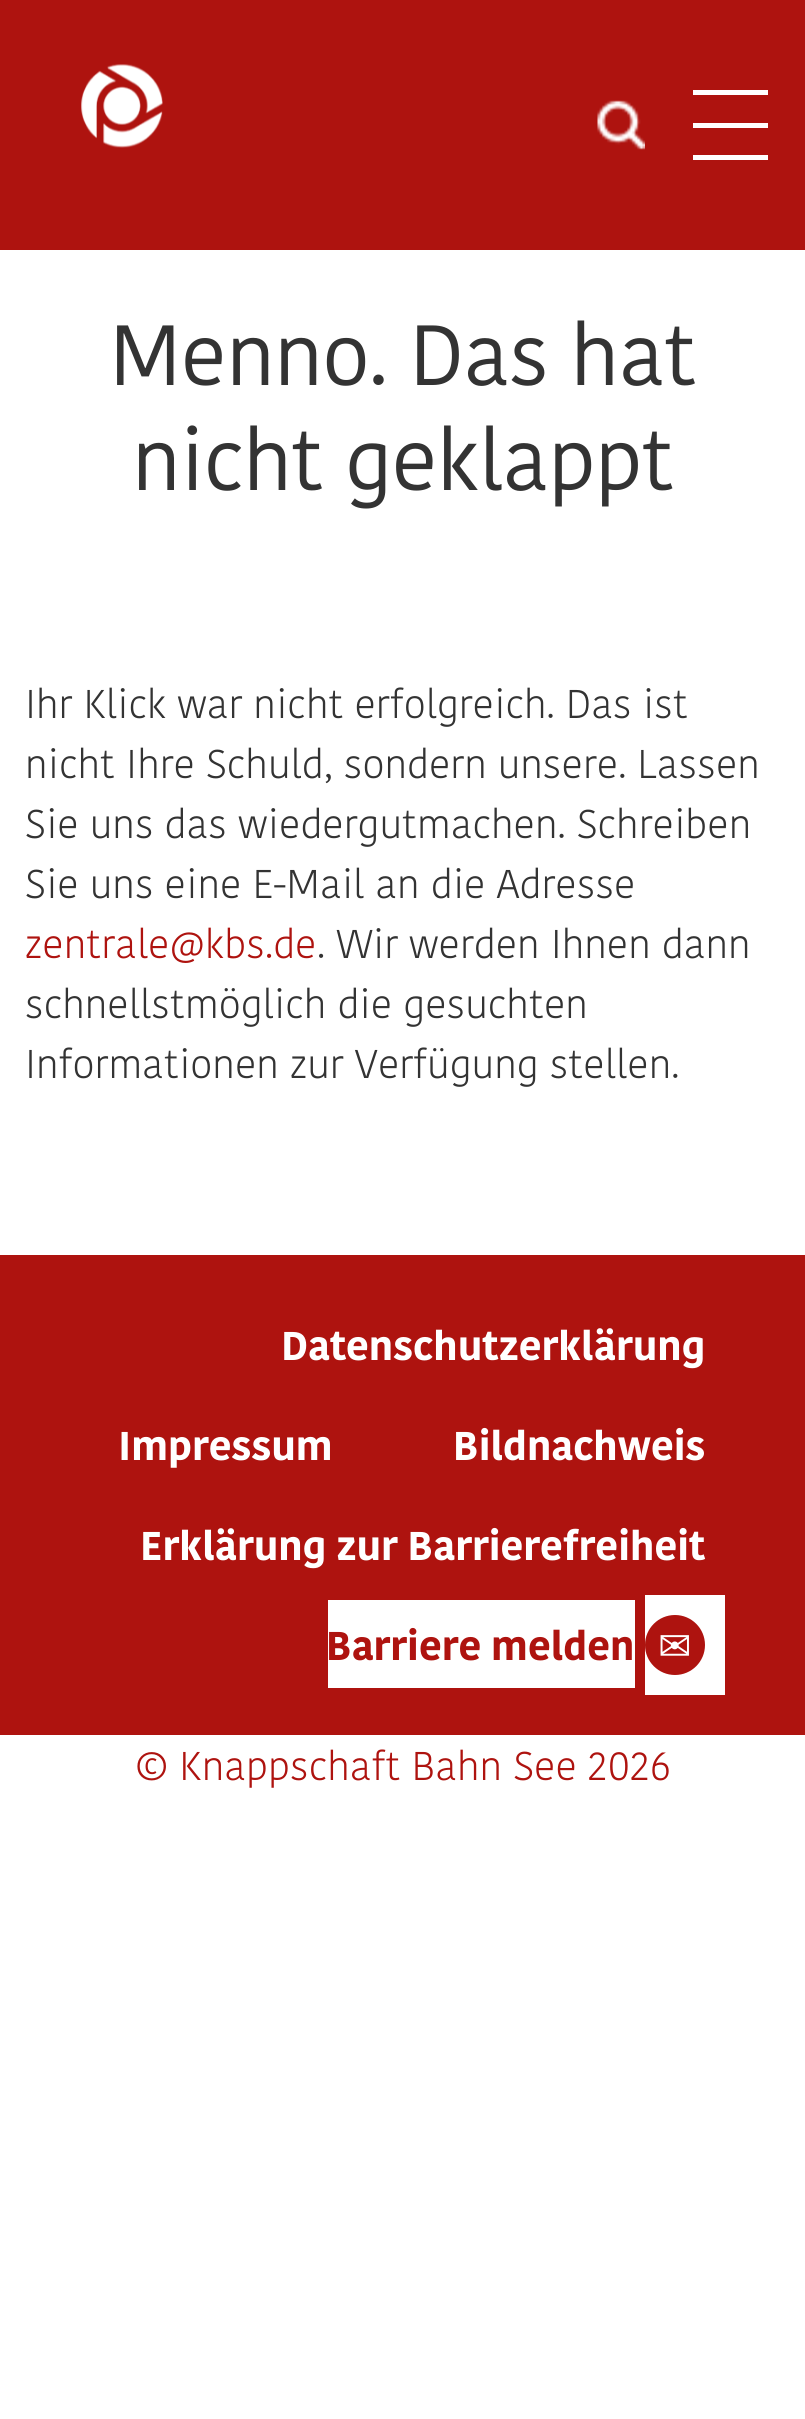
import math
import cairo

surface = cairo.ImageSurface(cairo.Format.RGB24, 805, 2419)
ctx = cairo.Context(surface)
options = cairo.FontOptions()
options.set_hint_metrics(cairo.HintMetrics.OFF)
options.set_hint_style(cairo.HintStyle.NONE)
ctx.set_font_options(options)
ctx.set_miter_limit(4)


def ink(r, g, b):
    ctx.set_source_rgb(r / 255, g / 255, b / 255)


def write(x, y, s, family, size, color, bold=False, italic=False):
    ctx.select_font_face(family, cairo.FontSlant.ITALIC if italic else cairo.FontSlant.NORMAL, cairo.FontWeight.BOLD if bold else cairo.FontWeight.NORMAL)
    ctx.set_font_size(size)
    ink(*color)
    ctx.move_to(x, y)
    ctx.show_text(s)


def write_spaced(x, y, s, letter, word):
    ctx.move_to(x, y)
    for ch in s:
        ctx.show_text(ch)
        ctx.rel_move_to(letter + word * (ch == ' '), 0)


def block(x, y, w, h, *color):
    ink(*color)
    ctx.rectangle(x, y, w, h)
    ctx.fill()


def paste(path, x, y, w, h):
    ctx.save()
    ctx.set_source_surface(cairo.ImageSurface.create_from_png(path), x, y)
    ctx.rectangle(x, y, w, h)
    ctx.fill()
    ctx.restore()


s1 = dict(family="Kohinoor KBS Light", size=40, color=(51, 51, 51))
s2 = dict(family="Kohinoor KBS Light", size=40, color=(174, 19, 15))
s3 = dict(family="Kohinoor KBS", size=40, color=(255, 255, 255), bold=True)
s4 = dict(family="Kohinoor KBS", size=40, color=(174, 19, 15), bold=True)
s5 = dict(family="DejaVu Sans", size=40, color=(255, 255, 255))

ink(255, 255, 255)
ctx.paint()
block(0, 0, 805, 250, 174, 19, 15)
paste("pic1.png", 81, 64, 82, 84)
paste("pic2.png", 597, 100, 48, 50)
block(693, 123, 75, 5, 255, 255, 255)
block(693, 90, 75, 5, 255, 255, 255)
block(693, 155, 75, 5, 255, 255, 255)
ctx.select_font_face("Kohinoor KBS")
ctx.set_font_size(85)
ink(51, 51, 51)
write_spaced(109, 385, "Menno. Das hat", -0.75, 0)
write_spaced(132, 490, "nicht geklappt", -0.75, 0)
write(25, 718, "Ihr Klick war nicht erfolgreich. Das ist", **s1)
write(25, 778, "nicht Ihre Schuld, sondern unsere. Lassen", **s1)
write(25, 838, "Sie uns das wiedergutmachen. Schreiben", **s1)
write(25, 898, "Sie uns eine E-Mail an die Adresse", **s1)
write(25, 958, "zentrale@kbs.de", **s2)
write(317, 958, ". Wir werden Ihnen dann", **s1)
write(25, 1018, "schnellstmöglich die gesuchten", **s1)
write(25, 1078, "Informationen zur Verfügung stellen.", **s1)
block(0, 1255, 805, 480, 174, 19, 15)
write(281, 1360, "Datenschutzerklärung", **s3)
write(118, 1460, "Impressum", **s3)
write(453, 1460, "Bildnachweis", **s3)
write(140, 1560, "Erklärung zur Barrierefreiheit", **s3)
block(328, 1600, 307, 88, 255, 255, 255)
block(645, 1595, 80, 100, 255, 255, 255)
write(326, 1660, "Barriere melden", **s4)
ctx.new_path()
ctx.arc(675, 1645, 30, 0, 2 * math.pi)
ctx.fill()
write(658, 1660, "✉", **s5)
write(135, 1780, "© Knappschaft Bahn See 2026", **s2)
surface.write_to_png("screenshot.png")
